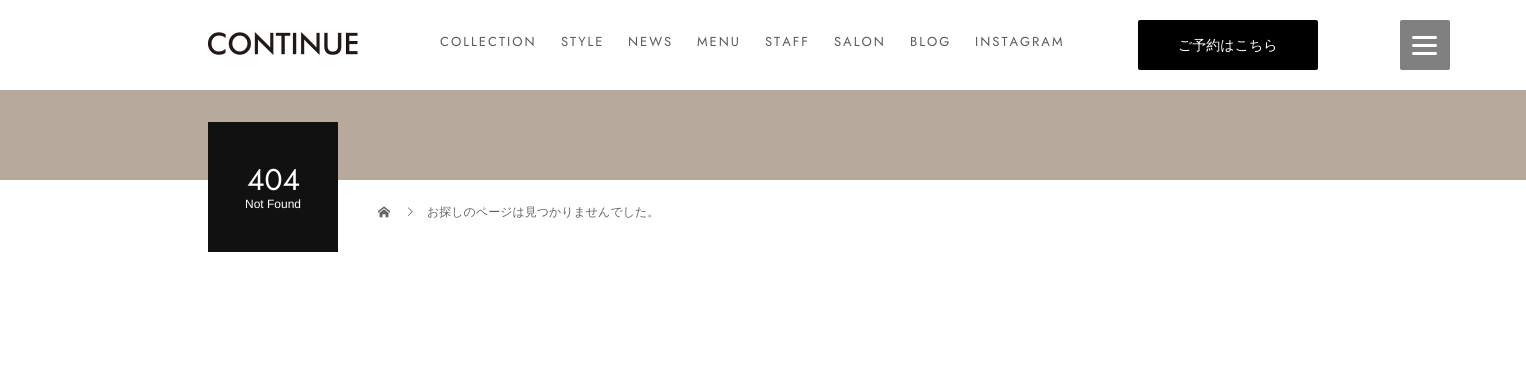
import math
import cairo

surface = cairo.ImageSurface(cairo.Format.RGB24, 1526, 366)
ctx = cairo.Context(surface)
options = cairo.FontOptions()
options.set_hint_metrics(cairo.HintMetrics.OFF)
options.set_hint_style(cairo.HintStyle.NONE)
ctx.set_font_options(options)
ctx.set_miter_limit(4)


def ink(r, g, b):
    ctx.set_source_rgb(r / 255, g / 255, b / 255)


def write(x, y, s, family, size, color, bold=False, italic=False):
    ctx.select_font_face(family, cairo.FontSlant.ITALIC if italic else cairo.FontSlant.NORMAL, cairo.FontWeight.BOLD if bold else cairo.FontWeight.NORMAL)
    ctx.set_font_size(size)
    ink(*color)
    ctx.move_to(x, y)
    ctx.show_text(s)


def write_spaced(x, y, s, letter, word):
    ctx.move_to(x, y)
    for ch in s:
        ctx.show_text(ch)
        ctx.rel_move_to(letter + word * (ch == ' '), 0)


def block(x, y, w, h, *color):
    ink(*color)
    ctx.rectangle(x, y, w, h)
    ctx.fill()


def round_path(x, y, w, h, r):
    ctx.new_sub_path()
    for i, (u, v) in enumerate([(x + w - r, y + h - r), (x + r, y + h - r), (x + r, y + r), (x + w - r, y + r)]):
        ctx.arc(u, v, r, i * math.pi / 2, (i + 1) * math.pi / 2)
    ctx.close_path()


def paste(path, x, y, w, h):
    ctx.save()
    ctx.set_source_surface(cairo.ImageSurface.create_from_png(path), x, y)
    ctx.rectangle(x, y, w, h)
    ctx.fill()
    ctx.restore()


s1 = dict(family="WenQuanYi Zen Hei Medium", size=14, color=(255, 255, 255))
s2 = dict(family="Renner", size=30, color=(255, 255, 255))
s3 = dict(family="Liberation Sans", size=12, color=(255, 255, 255))
s4 = dict(family="WenQuanYi Zen Hei Medium", size=12, color=(102, 102, 102))

ink(255, 255, 255)
ctx.paint()
paste("pic1.png", 208, 32, 150, 23)
ctx.select_font_face("Renner")
ctx.set_font_size(13)
ink(89, 89, 89)
write_spaced(440, 46, "COLLECTION", 2, 0)
write_spaced(561, 46, "STYLE", 2, 0)
write_spaced(628, 46, "NEWS", 2, 0)
write_spaced(697, 46, "MENU", 2, 0)
write_spaced(765, 46, "STAFF", 2, 0)
write_spaced(834, 46, "SALON", 2, 0)
write_spaced(910, 46, "BLOG", 2, 0)
write_spaced(975, 46, "INSTAGRAM", 2, 0)
ink(0, 0, 0)
round_path(1138, 20, 180, 50, 2)
ctx.fill()
write(1178, 50, "ご予約はこちら", **s1)
ink(128, 128, 128)
round_path(1400, 20, 50, 50, 2)
ctx.fill()
ink(255, 255, 255)
round_path(1412, 44, 25, 3, 1.5)
ctx.fill()
round_path(1412, 36, 25, 3, 1.5)
ctx.fill()
round_path(1412, 52, 25, 3, 1.5)
ctx.fill()
block(0, 90, 1526, 90, 183, 170, 157)
block(208, 122, 130, 130, 17, 17, 17)
write(247, 190, "404", **s2)
write(245, 208, "Not Found", **s3)
paste("pic2.png", 378, 206, 12, 12)
paste("pic3.png", 408, 207, 5, 9)
write(427, 216, "お探しのページは見つかりませんでした。", **s4)
surface.write_to_png("screenshot.png")
